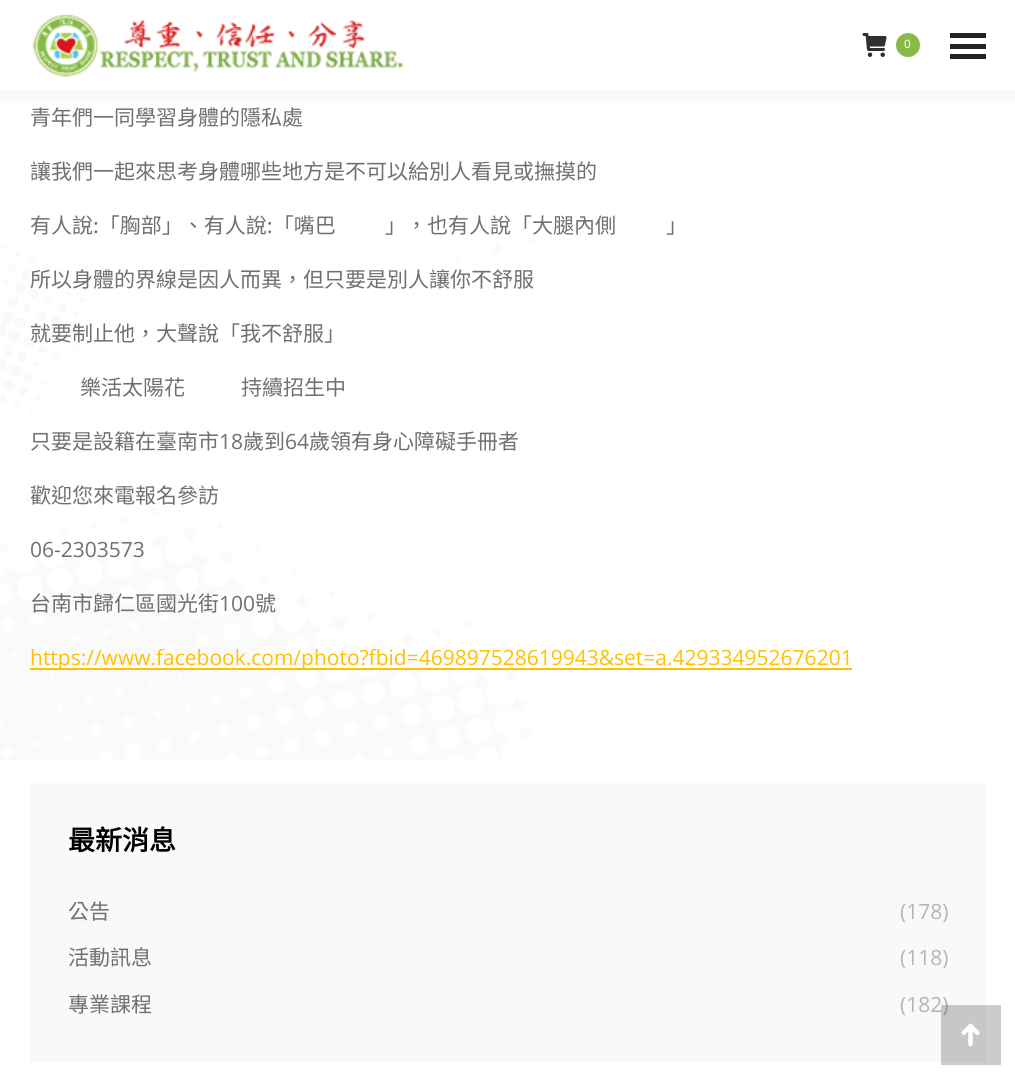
import math
import cairo

surface = cairo.ImageSurface(cairo.Format.RGB24, 1015, 1079)
ctx = cairo.Context(surface)
options = cairo.FontOptions()
options.set_hint_metrics(cairo.HintMetrics.OFF)
options.set_hint_style(cairo.HintStyle.NONE)
ctx.set_font_options(options)
ctx.set_miter_limit(4)


def ink(r, g, b):
    ctx.set_source_rgb(r / 255, g / 255, b / 255)


def write(x, y, s, family, size, color, bold=False, italic=False):
    ctx.select_font_face(family, cairo.FontSlant.ITALIC if italic else cairo.FontSlant.NORMAL, cairo.FontWeight.BOLD if bold else cairo.FontWeight.NORMAL)
    ctx.set_font_size(size)
    ink(*color)
    ctx.move_to(x, y)
    ctx.show_text(s)


def block(x, y, w, h, *color):
    ink(*color)
    ctx.rectangle(x, y, w, h)
    ctx.fill()


def round_path(x, y, w, h, r):
    ctx.new_sub_path()
    for i, (u, v) in enumerate([(x + w - r, y + h - r), (x + r, y + h - r), (x + r, y + r), (x + w - r, y + r)]):
        ctx.arc(u, v, r, i * math.pi / 2, (i + 1) * math.pi / 2)
    ctx.close_path()


def blur_box(x, y, w, h, r, blur, alpha):
    ctx.push_group_with_content(cairo.Content.ALPHA)
    ctx.set_operator(cairo.Operator.SOURCE)
    for i in range(15, -16, -2):
        e = blur * i / 6
        if min(w, h) + 2 * e > 0:
            ctx.set_source_rgba(0, 0, 0, alpha * math.erfc((i - 1) / 8.5) / 2)
            round_path(x - e, y - e, w + 2 * e, h + 2 * e, max(0, min(r + e + blur * .6, min(w, h) / 2 + e)))
            ctx.fill()
    ctx.mask(ctx.pop_group())


def paste(path, x, y, w, h):
    ctx.save()
    ctx.set_source_surface(cairo.ImageSurface.create_from_png(path), x, y)
    ctx.rectangle(x, y, w, h)
    ctx.fill()
    ctx.restore()


s1 = dict(family="Liberation Sans", size=12, color=(255, 255, 255))
s2 = dict(family="Noto Sans CJK TC", size=21, color=(112, 112, 112))
s3 = dict(family="Open Sans", size=21, color=(112, 112, 112))
s4 = dict(family="Open Sans", size=21, color=(255, 192, 0))
s5 = dict(family="Noto Sans CJK TC", size=27, color=(0, 0, 0), bold=True)
s6 = dict(family="Open Sans", size=21, color=(181, 181, 181))

ink(255, 255, 255)
ctx.paint()
paste("pic1.png", 0, 239, 533, 522)
ink(0, 0, 0)
blur_box(-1, -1, 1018, 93, 0, 11, 0.07)
block(0, 0, 1015, 90, 255, 255, 255)
paste("pic2.png", 32, 14, 372, 63)
paste("pic3.png", 862, 33, 25, 24)
ink(135, 186, 70)
ctx.arc(908, 45, 12, 0, 2 * math.pi)
ctx.fill()
write(904, 48, "0", **s1)
block(950, 33, 36, 5, 34, 34, 34)
block(950, 44, 36, 5, 34, 34, 34)
block(950, 54, 36, 5, 34, 34, 34)
write(30, 125, "青年們一同學習身體的隱私處", **s2)
write(30, 179, "讓我們一起來思考身體哪些地方是不可以給別人看見或撫摸的", **s2)
write(30, 233, "有人說:「胸部」、有人說:「嘴巴", **s2)
write(385, 233, "」，也有人說「大腿內側", **s2)
write(666, 233, "」", **s2)
write(30, 287, "所以身體的界線是因人而異，但只要是別人讓你不舒服", **s2)
write(30, 341, "就要制止他，大聲說「我不舒服」", **s2)
write(80, 395, "樂活太陽花", **s2)
write(241, 395, "持續招生中", **s2)
write(30, 449, "只要是設籍在臺南市", **s2)
write(219, 449, "18", **s3)
write(243, 449, "歲到", **s2)
write(285, 449, "64", **s3)
write(309, 449, "歲領有身心障礙手冊者", **s2)
write(30, 503, "歡迎您來電報名參訪", **s2)
write(30, 557, "06-2303573", **s3)
write(30, 611, "台南市歸仁區國光街", **s2)
write(219, 611, "100", **s3)
write(255, 611, "號", **s2)
block(30, 668, 822, 2, 255, 192, 0)
write(30, 665, "https://www.facebook.com/photo?fbid=469897528619943&set=a.429334952676201", **s4)
block(30, 783, 956, 279, 249, 249, 249)
write(68, 850, "最新消息", **s5)
write(68, 919, "公告", **s2)
write(900, 919, "(178)", **s6)
write(68, 965, "活動訊息", **s2)
write(900, 965, "(118)", **s6)
write(68, 1012, "專業課程", **s2)
write(900, 1012, "(182)", **s6)
ctx.set_source_rgba(0, 0, 0, 0.2)
ctx.rectangle(941, 1005, 60, 60)
ctx.fill()
paste("pic4.png", 961, 1023, 19, 24)
surface.write_to_png("screenshot.png")
